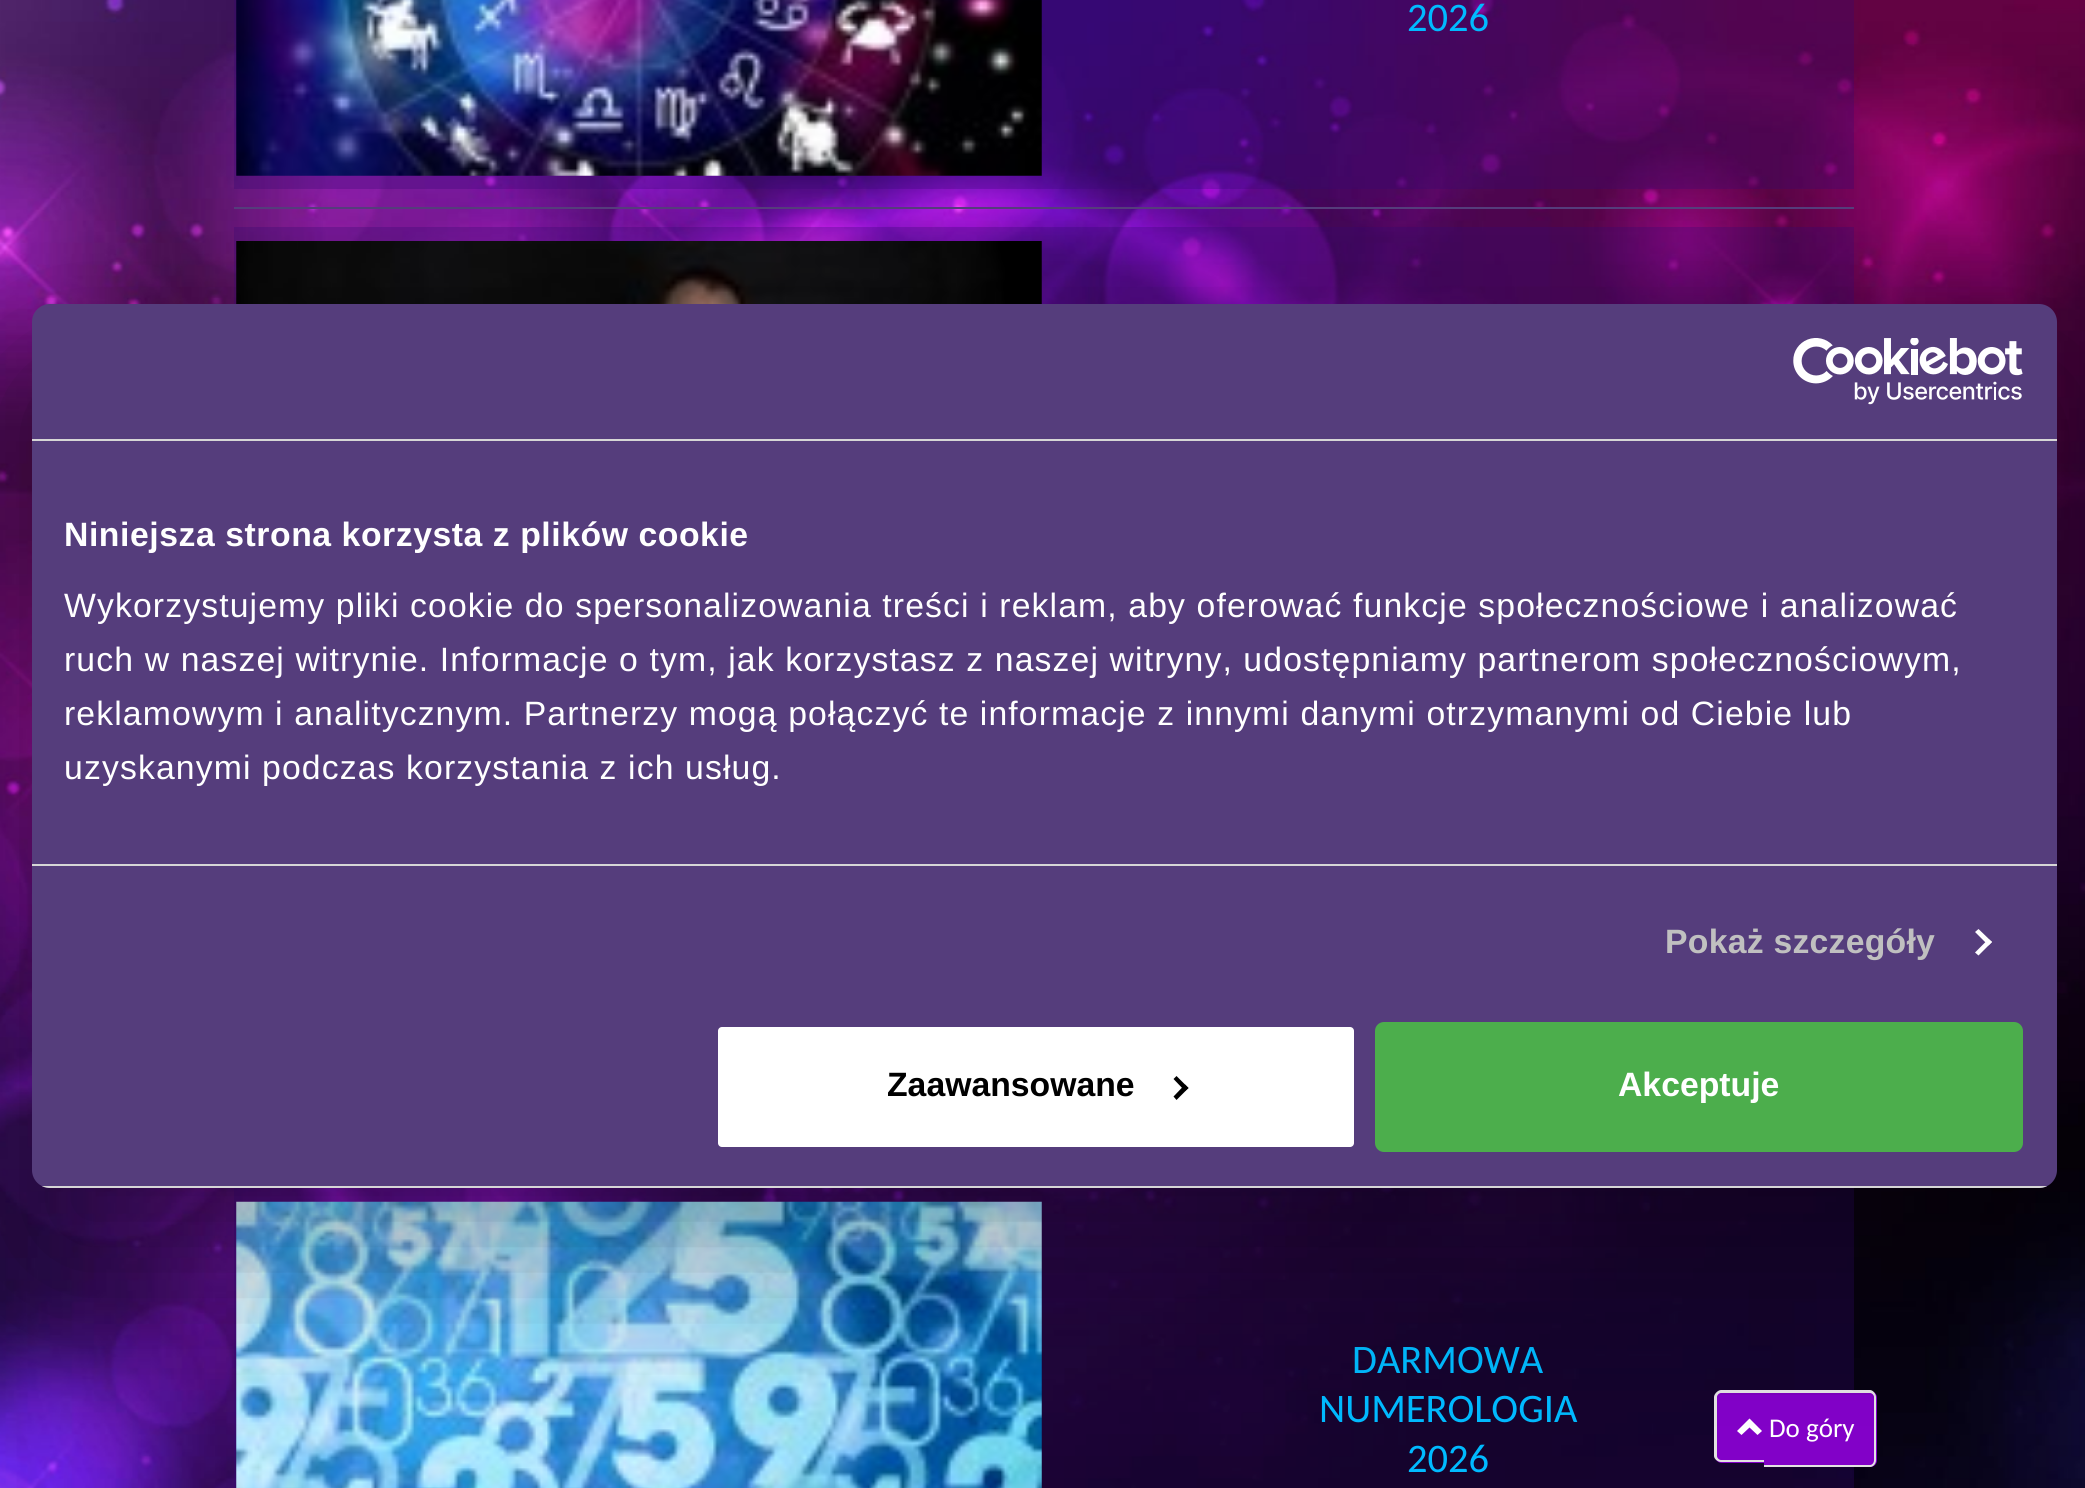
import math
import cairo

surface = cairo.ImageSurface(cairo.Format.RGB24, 2085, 1488)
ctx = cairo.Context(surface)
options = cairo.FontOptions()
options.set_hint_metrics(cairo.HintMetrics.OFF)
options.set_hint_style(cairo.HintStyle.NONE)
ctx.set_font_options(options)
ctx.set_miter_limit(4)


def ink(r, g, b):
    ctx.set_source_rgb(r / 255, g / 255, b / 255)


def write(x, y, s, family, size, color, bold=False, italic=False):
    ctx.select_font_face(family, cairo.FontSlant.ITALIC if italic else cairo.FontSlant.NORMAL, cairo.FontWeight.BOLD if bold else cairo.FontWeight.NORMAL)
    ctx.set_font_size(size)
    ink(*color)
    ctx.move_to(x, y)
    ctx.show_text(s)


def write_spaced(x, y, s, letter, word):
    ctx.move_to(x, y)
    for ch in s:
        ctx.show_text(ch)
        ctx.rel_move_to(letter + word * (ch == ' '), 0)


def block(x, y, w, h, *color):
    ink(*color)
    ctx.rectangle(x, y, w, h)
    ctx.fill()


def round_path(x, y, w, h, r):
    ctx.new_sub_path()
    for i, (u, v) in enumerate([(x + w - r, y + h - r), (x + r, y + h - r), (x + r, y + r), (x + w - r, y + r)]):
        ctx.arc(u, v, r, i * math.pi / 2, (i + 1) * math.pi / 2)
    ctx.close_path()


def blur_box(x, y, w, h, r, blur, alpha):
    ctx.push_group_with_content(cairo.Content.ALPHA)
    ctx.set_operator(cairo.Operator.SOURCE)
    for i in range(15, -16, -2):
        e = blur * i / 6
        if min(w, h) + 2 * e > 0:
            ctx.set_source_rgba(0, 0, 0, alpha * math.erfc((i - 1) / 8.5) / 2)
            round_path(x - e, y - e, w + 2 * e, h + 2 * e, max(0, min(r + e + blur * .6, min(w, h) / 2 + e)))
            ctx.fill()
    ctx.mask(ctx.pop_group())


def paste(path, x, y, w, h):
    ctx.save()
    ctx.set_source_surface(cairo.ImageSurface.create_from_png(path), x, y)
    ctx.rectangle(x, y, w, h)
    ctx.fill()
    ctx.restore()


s1 = dict(family="Carlito", size=40.5, color=(0, 186, 255))
s2 = dict(family="Liberation Sans", size=33.75, color=(0, 0, 0), bold=True)
s3 = dict(family="Liberation Sans", size=33.75, color=(255, 255, 255), bold=True)
s4 = dict(family="Carlito", size=27, color=(255, 255, 255))

ink(255, 255, 255)
ctx.paint()
paste("pic1.png", 0, 0, 2085, 1488)
ctx.set_source_rgba(0.208, 0.031, 0.455, 0.3)
ctx.rectangle(234, 0, 1620, 189)
ctx.fill()
paste("pic2.png", 236, 0, 806, 176)
write(1407, 31, "2026", **s1)
block(234, 207, 1620, 2, 85, 61, 123)
ctx.set_source_rgba(0.208, 0.031, 0.455, 0.3)
ctx.rectangle(234, 227, 1620, 77)
ctx.fill()
paste("pic3.png", 236, 241, 806, 63)
ctx.rectangle(234, 1188, 1620, 300)
ctx.fill()
paste("pic4.png", 236, 1201, 806, 287)
write(1352, 1373, "DARMOWA", **s1)
write(1319, 1422, "NUMEROLOGIA", **s1)
write(1407, 1472, "2026", **s1)
ink(130, 1, 200)
ctx.new_path()
ctx.move_to(1722, 1391)
ctx.line_to(1764, 1391)
ctx.line_to(1764, 1463)
ctx.line_to(1722, 1463)
ctx.curve_to(1718, 1463, 1715, 1460, 1715, 1456)
ctx.line_to(1715, 1398)
ctx.curve_to(1715, 1394, 1718, 1391, 1722, 1391)
ctx.close_path()
ctx.fill()
ink(124, 1, 190)
ctx.new_path()
ctx.move_to(1721, 1395)
ctx.line_to(1764, 1395)
ctx.line_to(1764, 1393)
ctx.line_to(1722, 1393)
ctx.curve_to(1719, 1393, 1717, 1395, 1717, 1398)
ctx.line_to(1717, 1400)
ctx.curve_to(1717, 1397, 1719, 1395, 1721, 1395)
ctx.close_path()
ctx.fill()
ink(227, 227, 227)
ctx.set_fill_rule(cairo.FillRule.EVEN_ODD)
ctx.new_path()
ctx.move_to(1721, 1390)
ctx.line_to(1764, 1390)
ctx.line_to(1764, 1462)
ctx.line_to(1721, 1462)
ctx.curve_to(1718, 1462, 1714, 1459, 1714, 1456)
ctx.line_to(1714, 1397)
ctx.curve_to(1714, 1394, 1718, 1390, 1721, 1390)
ctx.close_path()
ctx.move_to(1721, 1393)
ctx.line_to(1764, 1393)
ctx.line_to(1764, 1460)
ctx.line_to(1721, 1460)
ctx.curve_to(1719, 1460, 1717, 1458, 1717, 1456)
ctx.line_to(1717, 1397)
ctx.curve_to(1717, 1395, 1719, 1393, 1721, 1393)
ctx.close_path()
ctx.fill()
ink(130, 1, 200)
ctx.new_path()
ctx.move_to(1764, 1391)
ctx.line_to(1870, 1391)
ctx.curve_to(1874, 1391, 1877, 1394, 1877, 1398)
ctx.line_to(1877, 1460)
ctx.curve_to(1877, 1464, 1874, 1467, 1870, 1467)
ctx.line_to(1764, 1467)
ctx.close_path()
ctx.fill()
ink(124, 1, 190)
ctx.set_fill_rule(cairo.FillRule.WINDING)
ctx.new_path()
ctx.move_to(1764, 1395)
ctx.line_to(1870, 1395)
ctx.curve_to(1872, 1395, 1874, 1397, 1874, 1400)
ctx.line_to(1874, 1398)
ctx.curve_to(1874, 1395, 1872, 1393, 1869, 1393)
ctx.line_to(1764, 1393)
ctx.close_path()
ctx.fill()
ink(227, 227, 227)
ctx.set_fill_rule(cairo.FillRule.EVEN_ODD)
ctx.new_path()
ctx.move_to(1764, 1390)
ctx.line_to(1870, 1390)
ctx.curve_to(1873, 1390, 1876, 1394, 1876, 1397)
ctx.line_to(1876, 1460)
ctx.curve_to(1876, 1464, 1873, 1467, 1870, 1467)
ctx.line_to(1764, 1467)
ctx.close_path()
ctx.move_to(1764, 1393)
ctx.line_to(1870, 1393)
ctx.curve_to(1872, 1393, 1874, 1395, 1874, 1397)
ctx.line_to(1874, 1460)
ctx.curve_to(1874, 1463, 1872, 1465, 1870, 1465)
ctx.line_to(1764, 1465)
ctx.close_path()
ctx.fill()
ink(255, 255, 255)
ctx.set_fill_rule(cairo.FillRule.WINDING)
ctx.new_path()
ctx.move_to(1762, 1431)
ctx.line_to(1757.5, 1435)
ctx.line_to(1749.5, 1427.5)
ctx.line_to(1741.5, 1435)
ctx.line_to(1737, 1431)
ctx.line_to(1749.5, 1418.5)
ctx.close_path()
ctx.fill()
ink(0, 0, 0)
blur_box(32, 376, 2025, 884, 18, 76.5, 0.3)
ink(85, 61, 124)
round_path(32, 304, 2025, 884, 18)
ctx.fill()
block(32, 439, 2025, 2, 214, 214, 214)
paste("pic5.png", 1793, 338, 230, 67)
block(32, 864, 2025, 2, 214, 214, 214)
ctx.select_font_face("Liberation Sans", cairo.FontSlant.NORMAL, cairo.FontWeight.BOLD)
ctx.set_font_size(33.75)
ink(255, 255, 255)
write_spaced(64, 546, "Niniejsza strona korzysta z plików cookie", 0.55, 0)
ctx.select_font_face("Liberation Sans")
write_spaced(64, 617, "Wykorzystujemy pliki cookie do spersonalizowania treści i reklam, aby oferować funkcje społecznościowe i analizować", 1.12, 0)
write_spaced(64, 671, "ruch w naszej witrynie. Informacje o tym, jak korzystasz z naszej witryny, udostępniamy partnerom społecznościowym,", 1.12, 0)
write_spaced(64, 725, "reklamowym i analitycznym. Partnerzy mogą połączyć te informacje z innymi danymi otrzymanymi od Ciebie lub", 1.12, 0)
write_spaced(64, 779, "uzyskanymi podczas korzystania z ich usług.", 1.12, 0)
ctx.select_font_face("Liberation Sans", cairo.FontSlant.NORMAL, cairo.FontWeight.BOLD)
ink(192, 192, 192)
write_spaced(1665, 953, "Pokaż szczegóły", 0.25, 0)
ink(255, 255, 255)
ctx.new_path()
ctx.move_to(1978.5, 929)
ctx.line_to(1992, 942)
ctx.line_to(1988.5, 945.5)
ctx.line_to(1975, 932)
ctx.close_path()
ctx.fill()
ctx.new_path()
ctx.move_to(1988.5, 939)
ctx.line_to(1992, 942)
ctx.line_to(1978.5, 955.5)
ctx.line_to(1975, 952.5)
ctx.close_path()
ctx.fill()
ctx.save()
round_path(32, 304, 2025, 884, 18)
ctx.clip()
block(42, 1186, 2005, 2, 214, 214, 214)
ctx.restore()
round_path(715.5, 1024.5, 641, 125, 6.5)
ctx.fill_preserve()
ink(85, 61, 124)
ctx.set_line_width(5)
ctx.stroke()
write(887, 1096, "Zaawansowane", **s2)
ctx.new_path()
ctx.move_to(1176.5, 1076)
ctx.line_to(1188.5, 1088)
ctx.line_to(1185, 1091)
ctx.line_to(1173.5, 1079)
ctx.close_path()
ctx.fill()
ctx.new_path()
ctx.move_to(1185, 1084.5)
ctx.line_to(1188.5, 1088)
ctx.line_to(1176.5, 1100)
ctx.line_to(1173.5, 1096.5)
ctx.close_path()
ctx.fill()
ink(76, 174, 76)
round_path(1377.5, 1024.5, 643, 125, 6.5)
ctx.fill_preserve()
ctx.stroke()
write(1618, 1096, "Akceptuje", **s3)
write(1769, 1437, "Do góry", **s4)
surface.write_to_png("screenshot.png")
